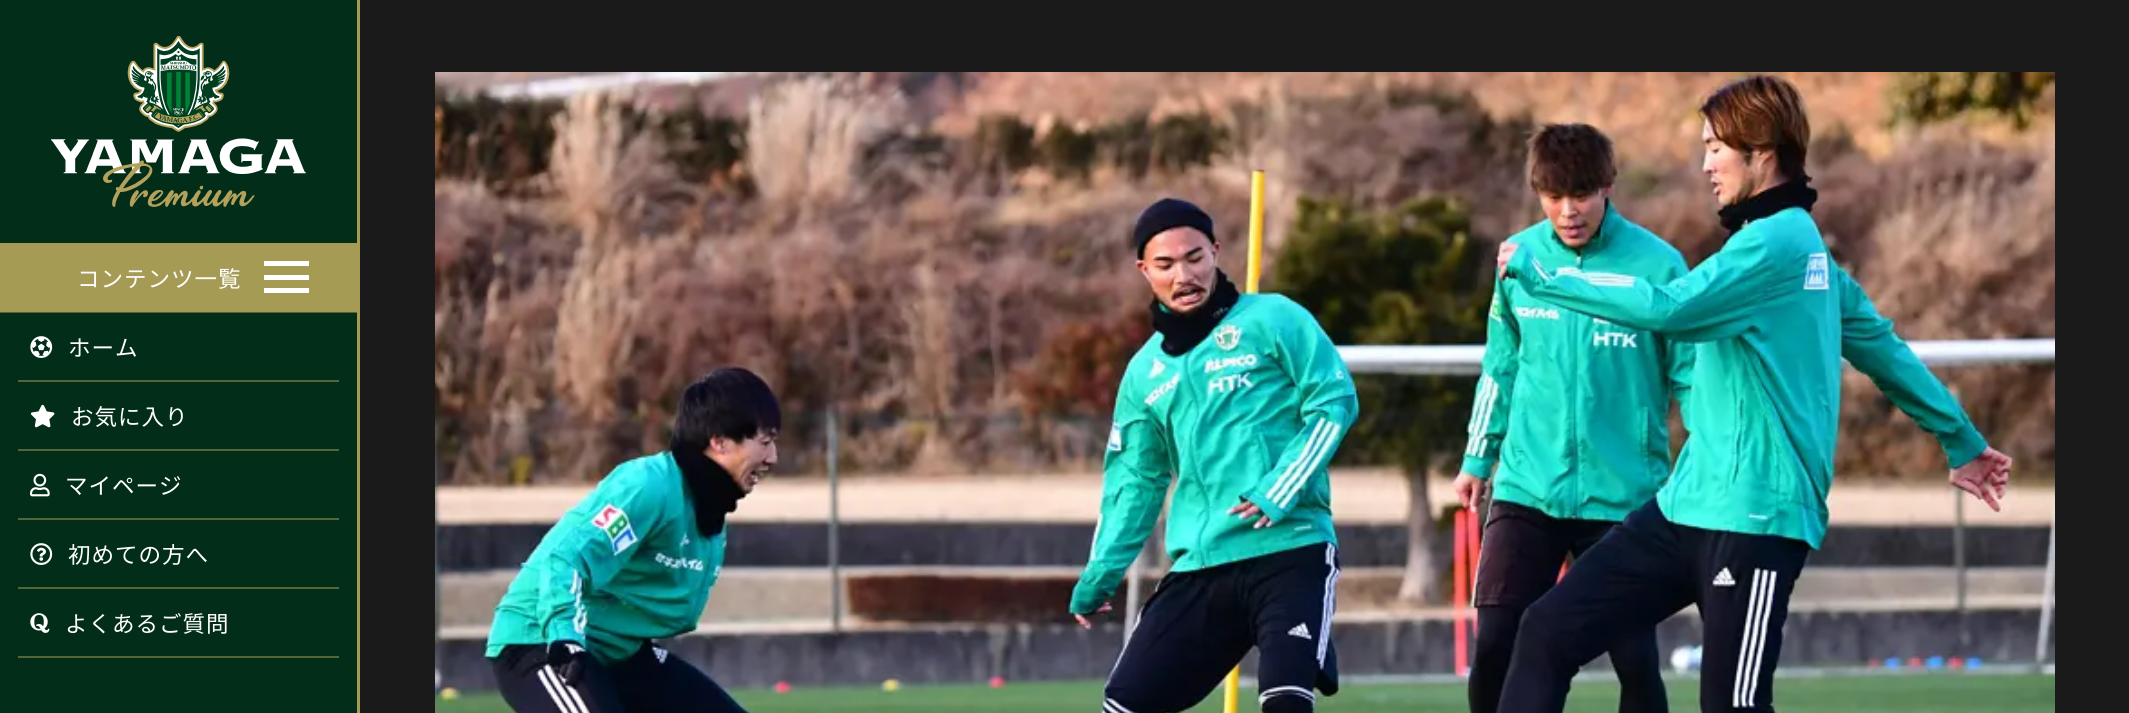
import math
import cairo

surface = cairo.ImageSurface(cairo.Format.RGB24, 2129, 713)
ctx = cairo.Context(surface)
options = cairo.FontOptions()
options.set_hint_metrics(cairo.HintMetrics.OFF)
options.set_hint_style(cairo.HintStyle.NONE)
ctx.set_font_options(options)
ctx.set_miter_limit(4)


def ink(r, g, b):
    ctx.set_source_rgb(r / 255, g / 255, b / 255)


def write_spaced(x, y, s, letter, word):
    ctx.move_to(x, y)
    for ch in s:
        ctx.show_text(ch)
        ctx.rel_move_to(letter + word * (ch == ' '), 0)


def block(x, y, w, h, *color):
    ink(*color)
    ctx.rectangle(x, y, w, h)
    ctx.fill()


def paste(path, x, y, w, h):
    ctx.save()
    ctx.set_source_surface(cairo.ImageSurface.create_from_png(path), x, y)
    ctx.rectangle(x, y, w, h)
    ctx.fill()
    ctx.restore()


ink(26, 26, 26)
ctx.paint()
block(357, 0, 3, 713, 166, 155, 84)
block(0, 0, 357, 713, 2, 46, 25)
block(0, 312, 357, 1, 84, 101, 55)
paste("pic1.png", 51, 36, 255, 171)
block(0, 243, 357, 69, 166, 155, 84)
ctx.select_font_face("Noto Sans JP")
ctx.set_font_size(22.5)
ink(255, 255, 255)
write_spaced(77, 287, "コンテンツ一覧", 1, 0)
block(264, 261, 45, 5, 255, 255, 255)
block(264, 275, 45, 5, 255, 255, 255)
block(264, 288, 45, 5, 255, 255, 255)
block(18, 380, 321, 2, 84, 101, 55)
paste("pic2.png", 30, 336, 23, 22)
ink(255, 255, 255)
write_spaced(68, 356, "ホーム", 1, 0)
block(18, 449, 321, 2, 84, 101, 55)
paste("pic3.png", 30, 404, 25, 24)
ink(255, 255, 255)
write_spaced(71, 425, "お気に入り", 1, 0)
block(18, 518, 321, 2, 84, 101, 55)
paste("pic4.png", 30, 473, 20, 24)
ink(255, 255, 255)
write_spaced(65, 494, "マイページ", 1, 0)
block(18, 587, 321, 2, 84, 101, 55)
paste("pic5.png", 30, 543, 23, 22)
ink(255, 255, 255)
write_spaced(68, 563, "初めての方へ", 1, 0)
block(18, 656, 321, 2, 84, 101, 55)
paste("pic6.png", 30, 613, 20, 20)
ink(255, 255, 255)
write_spaced(65, 632, "よくあるご質問", 1, 0)
paste("pic7.png", 435, 72, 1620, 641)
surface.write_to_png("screenshot.png")
